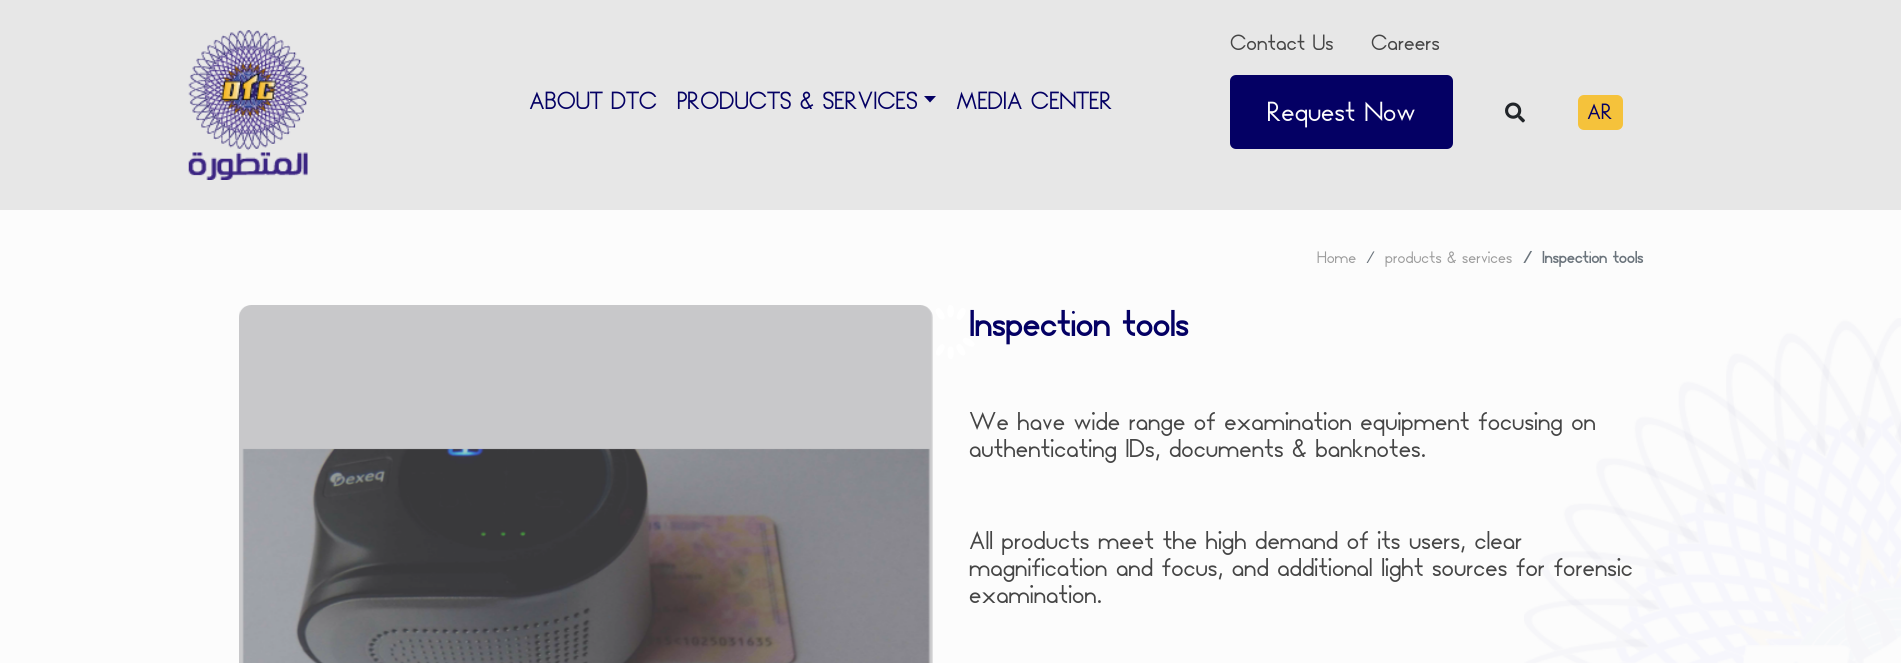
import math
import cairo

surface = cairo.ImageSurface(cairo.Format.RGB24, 1901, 663)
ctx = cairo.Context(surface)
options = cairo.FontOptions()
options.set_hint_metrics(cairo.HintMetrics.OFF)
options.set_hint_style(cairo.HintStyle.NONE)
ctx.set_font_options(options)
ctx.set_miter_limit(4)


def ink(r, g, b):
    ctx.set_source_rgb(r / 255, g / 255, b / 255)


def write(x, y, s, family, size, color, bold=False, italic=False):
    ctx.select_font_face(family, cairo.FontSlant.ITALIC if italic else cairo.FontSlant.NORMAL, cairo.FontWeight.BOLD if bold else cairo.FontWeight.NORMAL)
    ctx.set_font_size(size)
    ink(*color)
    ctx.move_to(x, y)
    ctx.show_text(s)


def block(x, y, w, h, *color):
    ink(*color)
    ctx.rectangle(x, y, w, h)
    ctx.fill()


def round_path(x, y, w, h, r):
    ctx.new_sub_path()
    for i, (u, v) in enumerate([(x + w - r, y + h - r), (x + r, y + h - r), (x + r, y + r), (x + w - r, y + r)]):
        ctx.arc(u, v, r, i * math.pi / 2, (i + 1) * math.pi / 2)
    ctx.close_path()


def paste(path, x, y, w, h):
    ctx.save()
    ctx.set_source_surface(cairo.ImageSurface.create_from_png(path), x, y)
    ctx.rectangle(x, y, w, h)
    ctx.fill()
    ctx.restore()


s1 = dict(family="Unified", size=22.5, color=(4, 0, 100))
s2 = dict(family="Unified", size=20, color=(69, 69, 69))
s3 = dict(family="Unified", size=25, color=(252, 252, 252))
s4 = dict(family="Unified", size=20, color=(4, 0, 100))
s5 = dict(family="Unified", size=32.5, color=(4, 0, 100), bold=True)
s6 = dict(family="Unified", size=15, color=(155, 155, 155))
s7 = dict(family="Unified", size=15, color=(107, 116, 124))
s8 = dict(family="Unified", size=15, color=(107, 116, 124), bold=True)
s9 = dict(family="Unified", size=23.3, color=(69, 69, 69))

ink(252, 252, 252)
ctx.paint()
block(0, 0, 1901, 210, 231, 231, 231)
paste("pic1.png", 188, 30, 121, 150)
write(529, 109, "ABOUT DTC", **s1)
write(677, 109, "PRODUCTS & SERVICES", **s1)
ctx.new_path()
ctx.move_to(924, 96)
ctx.line_to(936, 96)
ctx.line_to(930, 102.5)
ctx.close_path()
ctx.fill()
write(956, 109, "MEDIA CENTER", **s1)
write(1230, 50, "Contact Us", **s2)
write(1371, 50, "Careers", **s2)
ink(4, 0, 100)
round_path(1230, 75, 223, 74, 6)
ctx.fill()
write(1267, 121, "Request Now", **s3)
paste("pic2.png", 1505, 102, 20, 21)
ink(245, 194, 59)
round_path(1578, 95, 45, 35, 6)
ctx.fill()
write(1587, 119, "AR", **s4)
write(969, 336, "Inspection tools", **s5)
ink(255, 255, 255)
ctx.new_path()
ctx.move_to(950, 305)
ctx.curve_to(951, 305, 951.5, 305, 952, 305.5)
ctx.curve_to(954.5, 307, 954.5, 315, 952, 317)
ctx.curve_to(951.5, 317.5, 951, 317.5, 950, 317.5)
ctx.curve_to(946.5, 317, 946.5, 305, 950, 305)
ctx.close_path()
ctx.move_to(963.5, 308)
ctx.curve_to(964.5, 308.5, 965, 309, 965.5, 309.5)
ctx.curve_to(966.5, 312.5, 962.5, 319.5, 959.5, 320)
ctx.curve_to(958.5, 320, 958, 319.5, 957.5, 319)
ctx.curve_to(954.5, 317, 960.5, 306.5, 963.5, 308)
ctx.close_path()
ctx.move_to(974.5, 345)
ctx.curve_to(974, 345.5, 973.5, 346.5, 973, 346.5)
ctx.curve_to(970, 347.5, 963, 343.5, 962.5, 340.5)
ctx.curve_to(962.5, 340, 963, 339, 963.5, 338.5)
ctx.curve_to(965.5, 335.5, 976, 342, 974.5, 345)
ctx.close_path()
ctx.fill()
ctx.new_path()
ctx.move_to(964.5, 355)
ctx.curve_to(964, 355.5, 963.5, 356, 962.5, 355.5)
ctx.curve_to(959.5, 355, 955.5, 348.5, 956.5, 345.5)
ctx.curve_to(957, 345, 958, 344.5, 958.5, 344)
ctx.curve_to(961.5, 342.5, 967.5, 353.5, 964.5, 355)
ctx.close_path()
ctx.move_to(951, 359)
ctx.curve_to(950.5, 359, 949.5, 359, 949, 358.5)
ctx.curve_to(947, 356.5, 947, 348.5, 949, 347)
ctx.curve_to(949.5, 346.5, 950.5, 346.5, 951, 346.5)
ctx.curve_to(955, 346.5, 954.5, 359, 951, 359)
ctx.close_path()
ctx.move_to(937.5, 355.5)
ctx.curve_to(937, 355, 936, 355, 936, 354)
ctx.curve_to(935, 351.5, 939, 344.5, 942, 344)
ctx.curve_to(942.5, 344, 943.5, 344.5, 944, 345)
ctx.curve_to(947, 346.5, 940.5, 357, 937.5, 355.5)
ctx.close_path()
ctx.move_to(936.5, 309)
ctx.curve_to(937.5, 308.5, 938, 308, 938.5, 308)
ctx.curve_to(941.5, 308.5, 945.5, 315.5, 944.5, 318)
ctx.curve_to(944.5, 319, 943.5, 319.5, 943, 319.5)
ctx.curve_to(939.5, 321, 933.5, 310.5, 936.5, 309)
ctx.close_path()
ctx.fill()
write(1317, 263, "Home", **s6)
write(1366, 263, "/", **s7)
write(1385, 263, "products & services", **s6)
write(1523, 263, "/", **s8)
write(1542, 263, "Inspection tools", **s8)
paste("pic3.png", 239, 305, 694, 358)
paste("pic4.png", 1524, 318, 377, 345)
write(969, 430, "We have wide range of examination equipment focusing on", **s9)
write(969, 457, "authenticating IDs, documents & banknotes.", **s9)
write(969, 549, "All products meet the high demand of its users, clear", **s9)
write(969, 576, "magnification and focus, and additional light sources for forensic", **s9)
write(969, 603, "examination.", **s9)
surface.write_to_png("screenshot.png")
